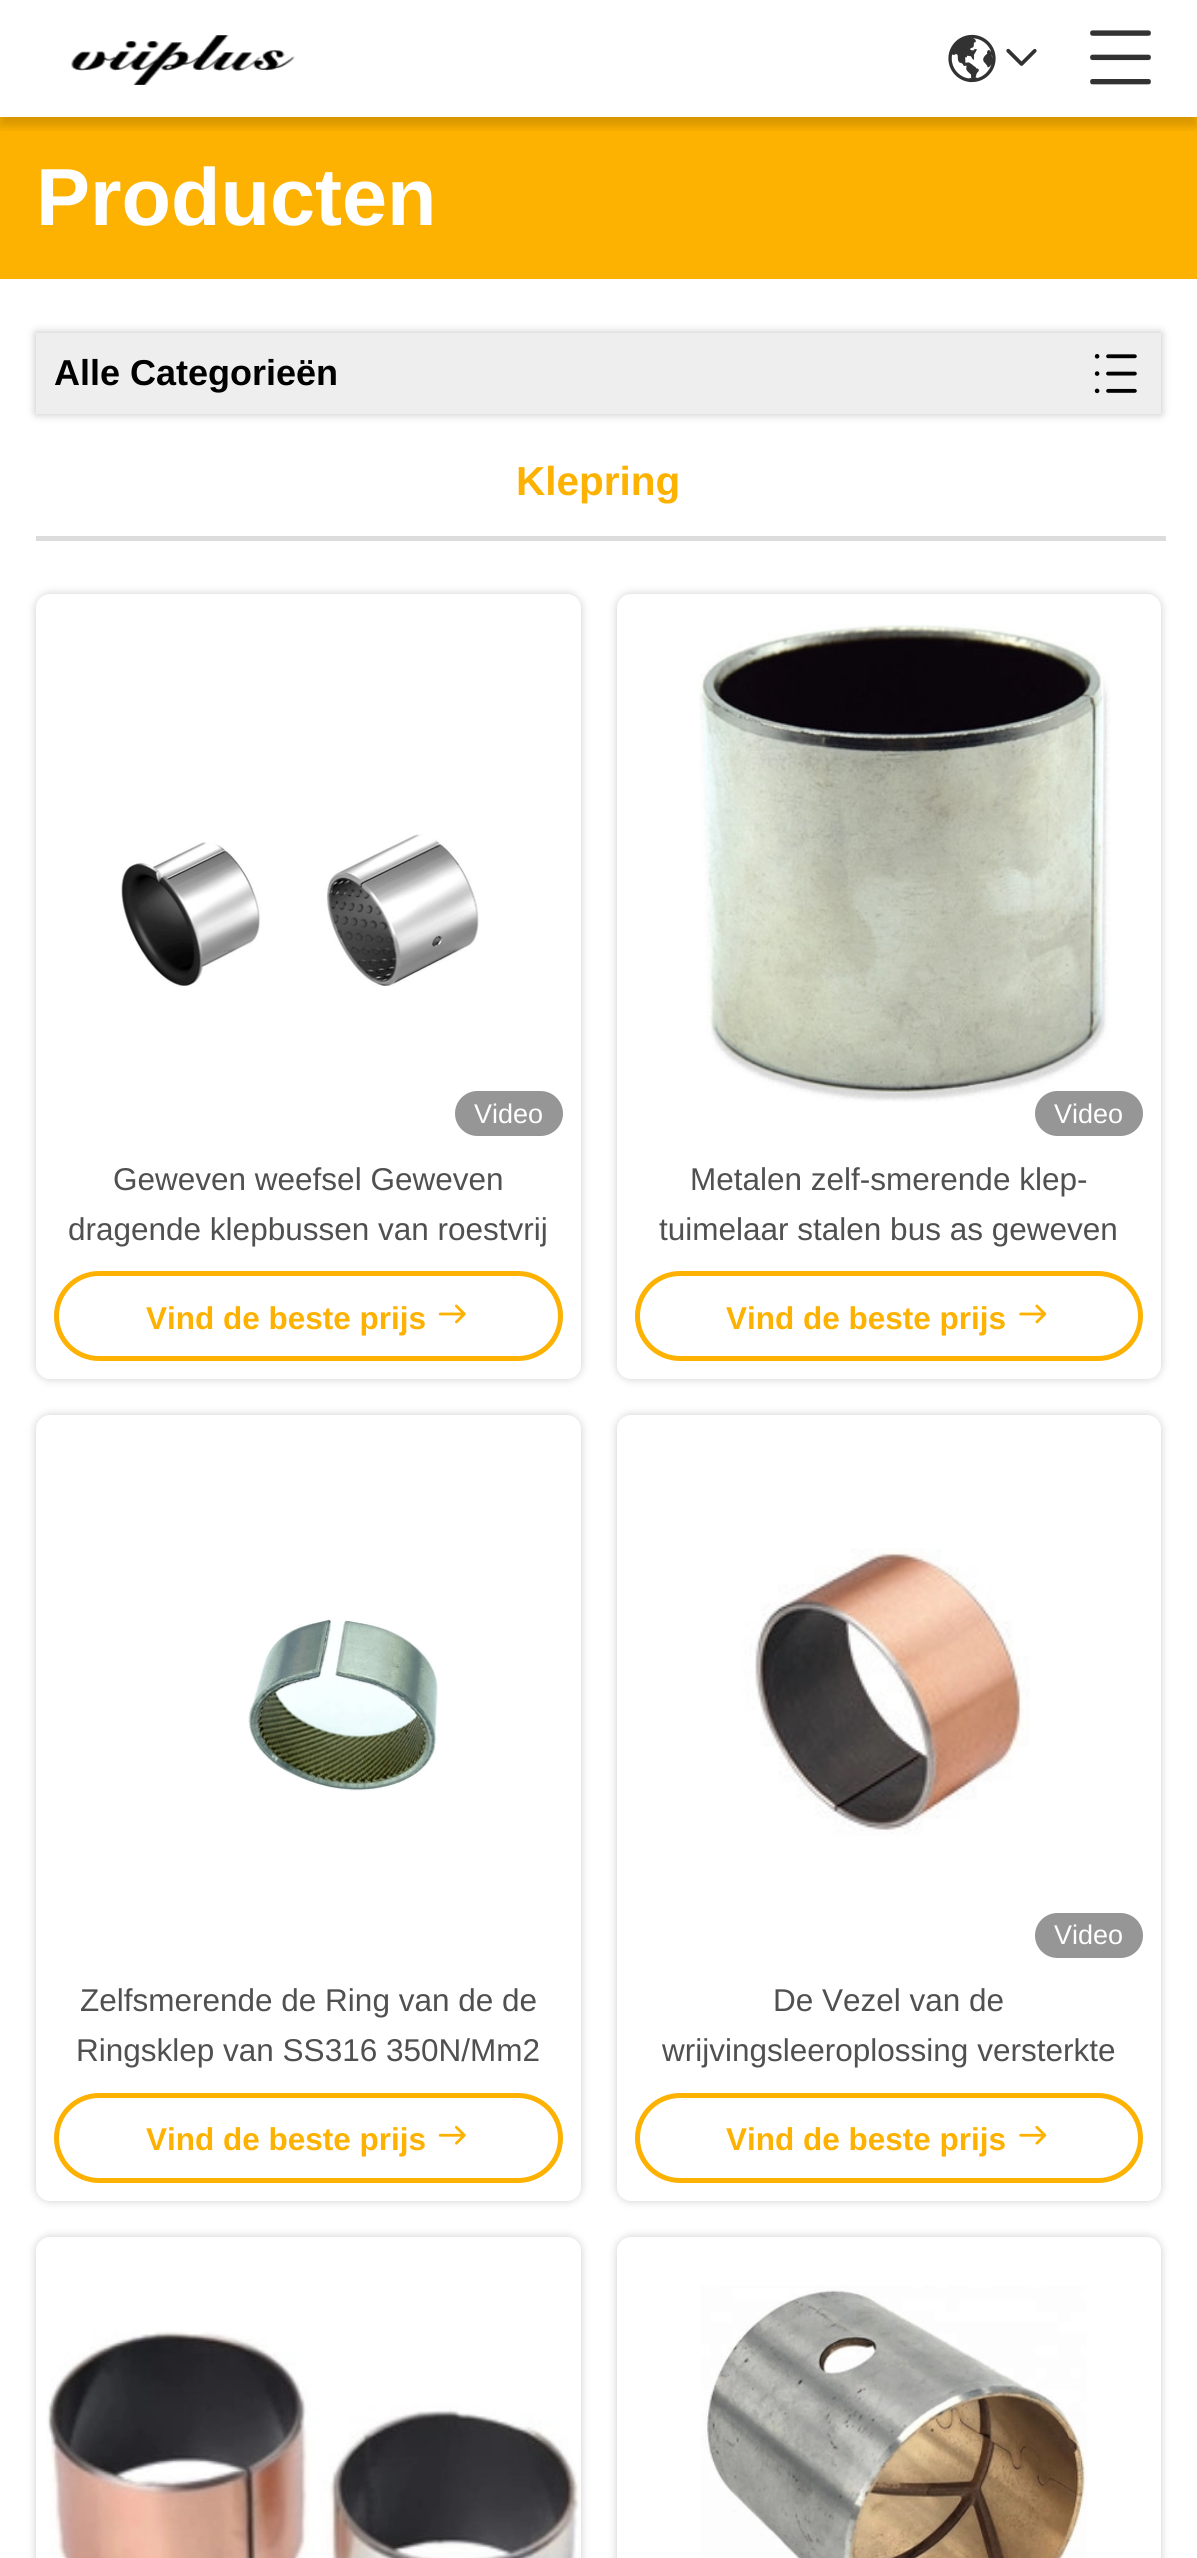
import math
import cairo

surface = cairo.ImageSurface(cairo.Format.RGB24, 1197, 2558)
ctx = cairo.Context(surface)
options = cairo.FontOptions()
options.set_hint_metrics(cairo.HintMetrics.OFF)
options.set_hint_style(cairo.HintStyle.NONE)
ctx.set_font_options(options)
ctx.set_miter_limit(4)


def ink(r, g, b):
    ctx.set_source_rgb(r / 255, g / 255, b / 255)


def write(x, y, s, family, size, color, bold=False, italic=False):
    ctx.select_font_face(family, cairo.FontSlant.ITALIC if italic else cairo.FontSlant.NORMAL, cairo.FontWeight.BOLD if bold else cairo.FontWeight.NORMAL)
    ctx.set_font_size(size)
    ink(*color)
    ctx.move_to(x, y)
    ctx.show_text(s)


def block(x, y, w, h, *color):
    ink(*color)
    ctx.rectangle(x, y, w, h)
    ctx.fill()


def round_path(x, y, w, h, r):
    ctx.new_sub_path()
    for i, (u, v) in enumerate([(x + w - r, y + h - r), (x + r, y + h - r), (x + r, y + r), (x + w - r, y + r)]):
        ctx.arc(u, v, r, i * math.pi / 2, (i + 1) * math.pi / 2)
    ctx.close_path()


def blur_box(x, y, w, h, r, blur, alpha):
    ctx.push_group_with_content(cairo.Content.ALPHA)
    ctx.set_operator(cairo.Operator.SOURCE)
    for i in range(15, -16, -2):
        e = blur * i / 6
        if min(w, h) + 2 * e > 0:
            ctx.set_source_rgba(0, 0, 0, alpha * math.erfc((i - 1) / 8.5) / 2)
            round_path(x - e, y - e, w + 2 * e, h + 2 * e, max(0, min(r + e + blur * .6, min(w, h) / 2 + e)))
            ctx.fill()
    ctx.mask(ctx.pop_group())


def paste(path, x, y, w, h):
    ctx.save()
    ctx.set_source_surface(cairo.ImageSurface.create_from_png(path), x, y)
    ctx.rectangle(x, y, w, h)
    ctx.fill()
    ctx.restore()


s1 = dict(family="Liberation Sans", size=81, color=(255, 255, 255), bold=True)
s2 = dict(family="Liberation Sans", size=36, color=(0, 0, 0), bold=True)
s3 = dict(family="Liberation Sans", size=40.5, color=(253, 177, 0), bold=True)
s4 = dict(family="Liberation Sans", size=27, color=(255, 255, 255))
s5 = dict(family="Liberation Sans", size=31.5, color=(80, 80, 80))
s6 = dict(family="Liberation Sans", size=31.5, color=(253, 177, 0), bold=True)

ink(255, 255, 255)
ctx.paint()
block(0, 117, 1197, 162, 253, 177, 0)
ctx.save()
ctx.rectangle(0, 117, 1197, 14)
ctx.clip()
ink(0, 0, 0)
blur_box(0, 9, 1197, 117, 0, 4.5, 0.15)
ctx.restore()
paste("pic1.png", 71, 35, 224, 50)
paste("pic2.png", 948, 34, 48, 49)
paste("pic3.png", 1006, 48, 31, 18)
paste("pic4.png", 1090, 30, 61, 55)
write(36, 225, "Producten", **s1)
ink(0, 0, 0)
blur_box(36, 333, 1125, 81, 0, 4.5, 0.25)
block(36, 333, 1125, 81, 238, 238, 238)
write(54, 385, "Alle Categorieën", **s2)
paste("pic5.png", 1094, 354, 43, 40)
write(516, 495, "Klepring", **s3)
block(36, 536, 1130, 5, 220, 220, 220)
ink(0, 0, 0)
blur_box(36, 594, 545, 785, 14, 4.5, 0.2)
ink(255, 255, 255)
round_path(36, 594, 545, 785, 14)
ctx.fill()
paste("pic6.png", 121, 834, 358, 153)
ink(150, 150, 150)
round_path(455, 1091, 108, 45, 22.5)
ctx.fill()
write(474, 1123, "Video", **s4)
write(113, 1190, "Geweven weefsel Geweven", **s5)
write(68, 1240, "dragende klepbussen van roestvrij", **s5)
round_path(56.5, 1273.5, 504, 85, 42.5)
ink(253, 177, 0)
ctx.set_line_width(5)
ctx.stroke()
write(146, 1329, "Vind de beste prijs", **s6)
paste("pic7.png", 438, 1304, 28, 20)
ink(0, 0, 0)
blur_box(617, 594, 544, 785, 14, 4.5, 0.2)
ink(255, 255, 255)
round_path(617, 594, 544, 785, 14)
ctx.fill()
paste("pic8.png", 699, 624, 412, 478)
ink(150, 150, 150)
round_path(1035, 1091, 108, 45, 22.5)
ctx.fill()
write(1054, 1123, "Video", **s4)
write(690, 1190, "Metalen zelf-smerende klep-", **s5)
write(659, 1240, "tuimelaar stalen bus as geweven", **s5)
round_path(637.5, 1273.5, 503, 85, 42.5)
ink(253, 177, 0)
ctx.stroke()
write(726, 1329, "Vind de beste prijs", **s6)
paste("pic9.png", 1019, 1304, 28, 20)
ink(0, 0, 0)
blur_box(36, 1415, 545, 786, 14, 4.5, 0.2)
ink(255, 255, 255)
round_path(36, 1415, 545, 786, 14)
ctx.fill()
paste("pic10.png", 248, 1619, 190, 172)
write(80, 2011, "Zelfsmerende de Ring van de de", **s5)
write(76, 2061, "Ringsklep van SS316 350N/Mm2", **s5)
round_path(56.5, 2095.5, 504, 85, 42.5)
ink(253, 177, 0)
ctx.stroke()
write(146, 2150, "Vind de beste prijs", **s6)
paste("pic11.png", 438, 2125, 28, 20)
ink(0, 0, 0)
blur_box(617, 1415, 544, 786, 14, 4.5, 0.2)
ink(255, 255, 255)
round_path(617, 1415, 544, 786, 14)
ctx.fill()
paste("pic12.png", 743, 1548, 287, 288)
ink(150, 150, 150)
round_path(1035, 1913, 108, 45, 22.5)
ctx.fill()
write(1054, 1944, "Video", **s4)
write(773, 2011, "De Vezel van de", **s5)
write(662, 2061, "wrijvingsleeroplossing versterkte", **s5)
round_path(637.5, 2095.5, 503, 85, 42.5)
ink(253, 177, 0)
ctx.stroke()
write(726, 2150, "Vind de beste prijs", **s6)
paste("pic13.png", 1019, 2125, 28, 20)
ink(0, 0, 0)
blur_box(36, 2237, 545, 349, 14, 4.5, 0.2)
ink(255, 255, 255)
round_path(36, 2237, 545, 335, 14)
ctx.fill()
paste("pic14.png", 46, 2330, 534, 228)
ink(0, 0, 0)
blur_box(617, 2237, 544, 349, 14, 4.5, 0.2)
ink(255, 255, 255)
round_path(617, 2237, 544, 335, 14)
ctx.fill()
paste("pic15.png", 701, 2285, 386, 273)
surface.write_to_png("screenshot.png")
